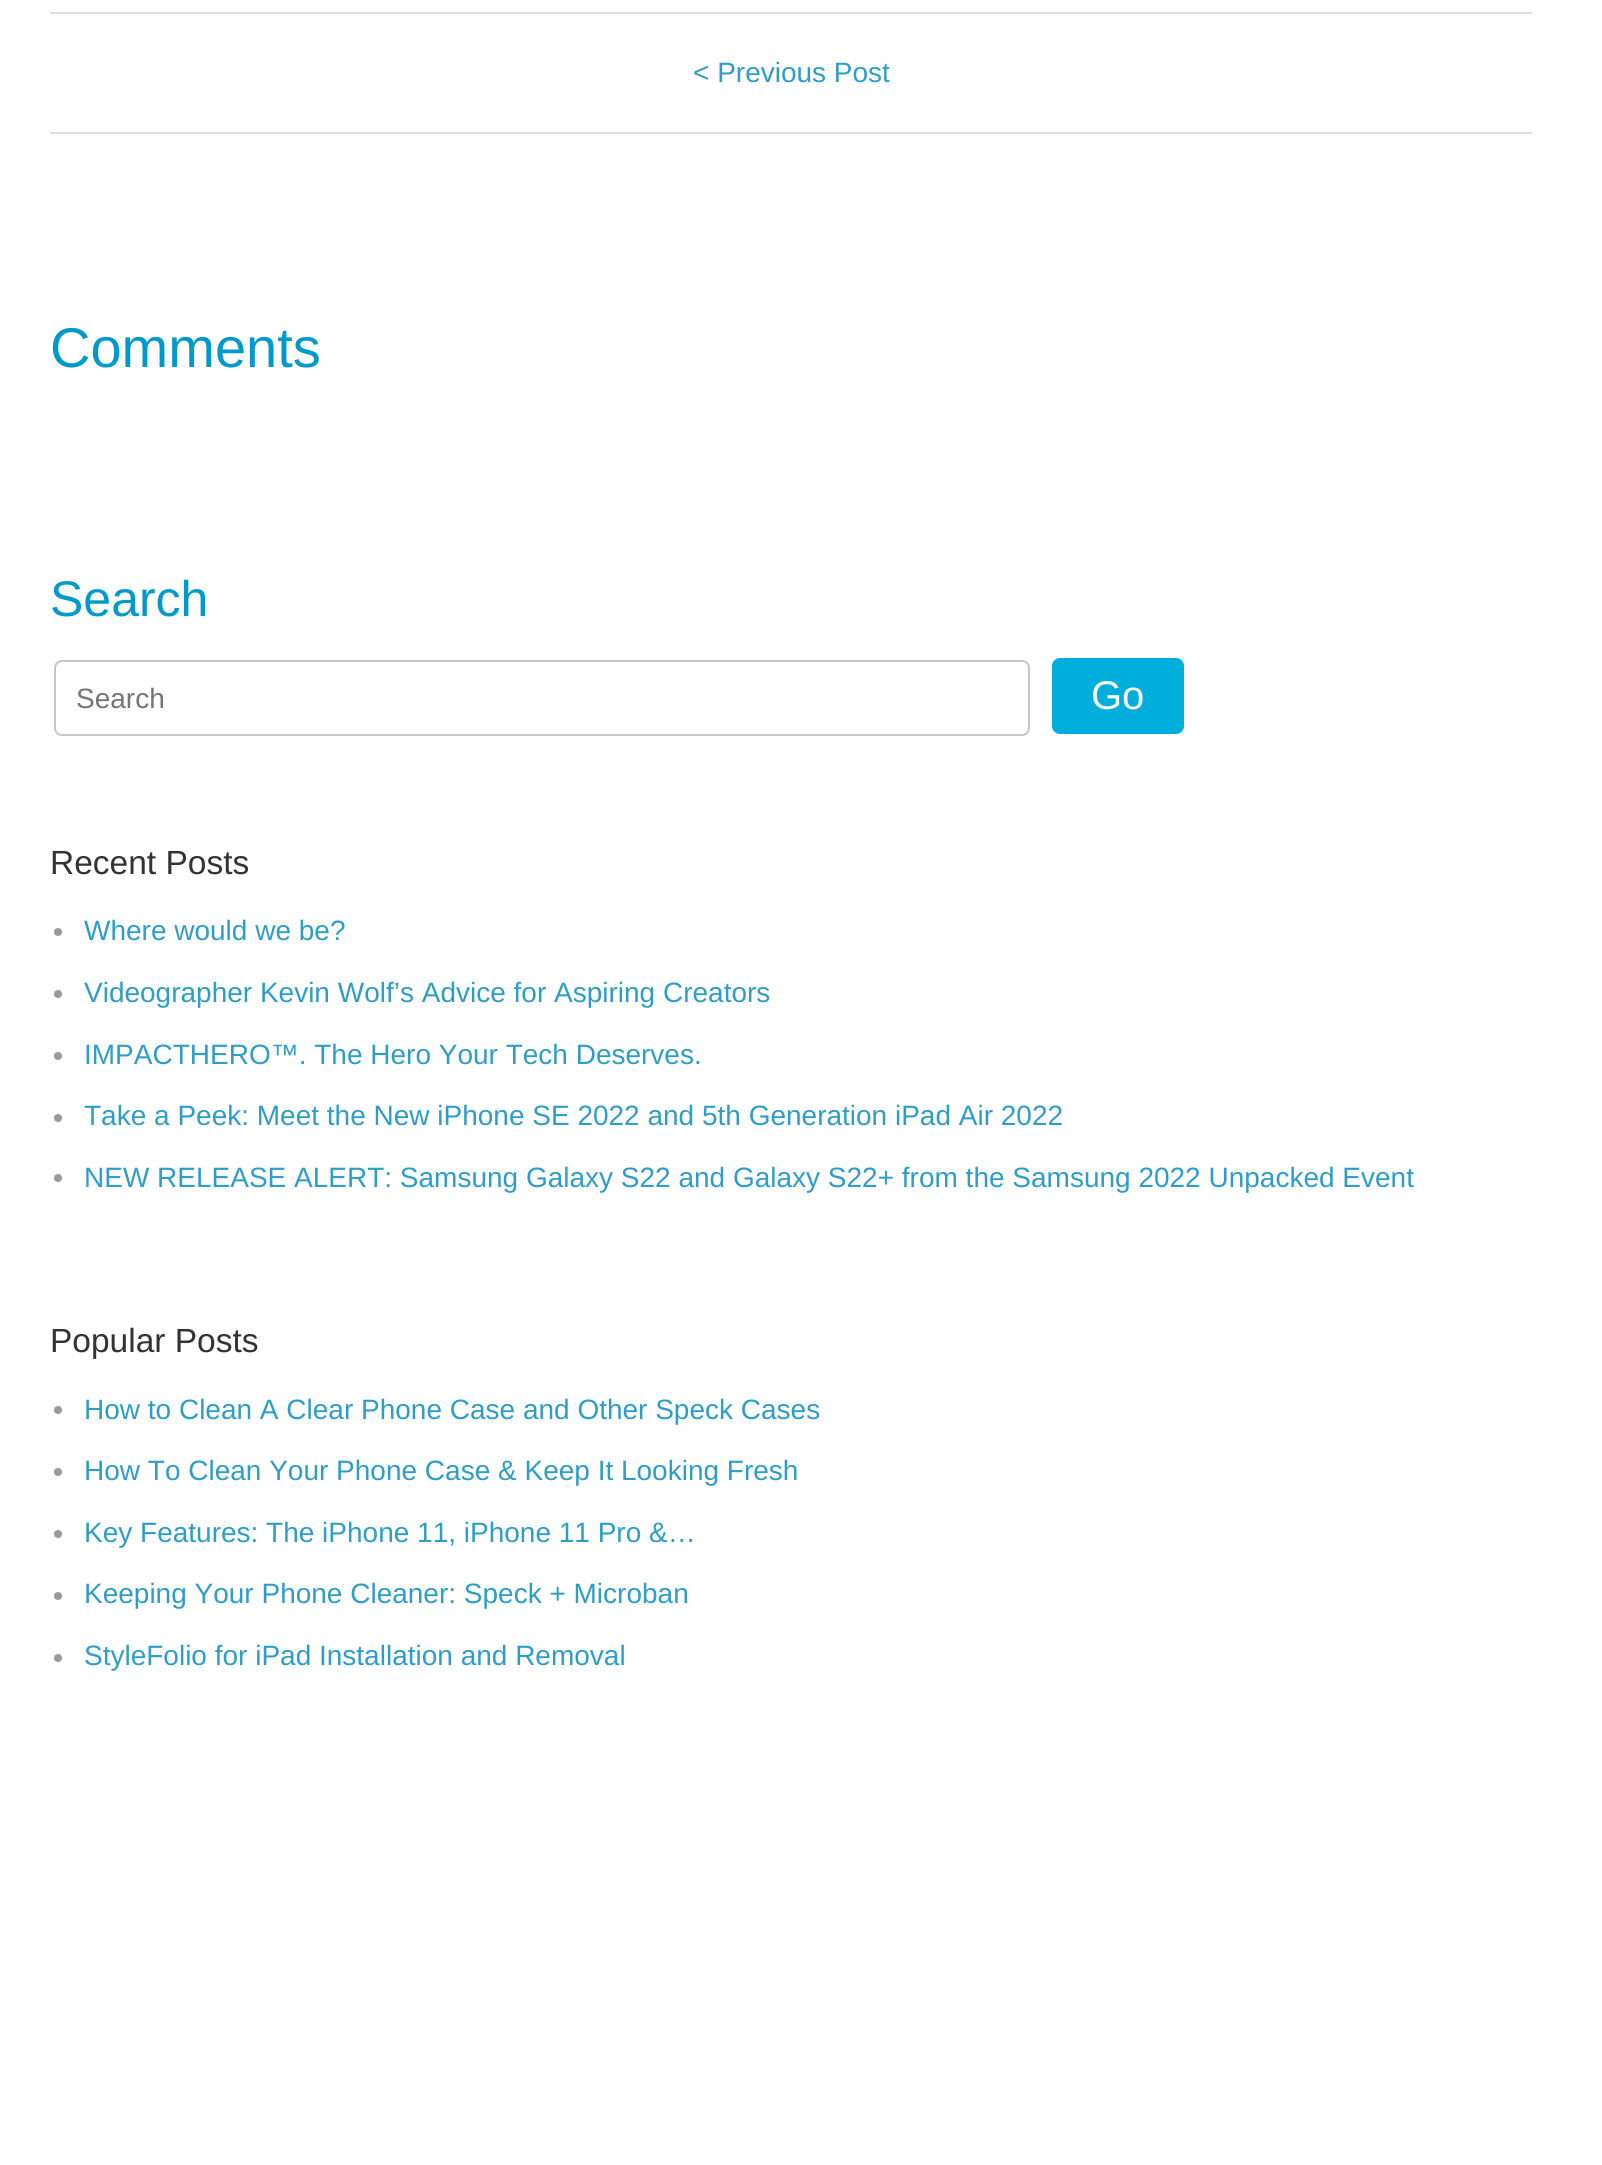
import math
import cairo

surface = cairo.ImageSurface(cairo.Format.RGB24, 1602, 2165)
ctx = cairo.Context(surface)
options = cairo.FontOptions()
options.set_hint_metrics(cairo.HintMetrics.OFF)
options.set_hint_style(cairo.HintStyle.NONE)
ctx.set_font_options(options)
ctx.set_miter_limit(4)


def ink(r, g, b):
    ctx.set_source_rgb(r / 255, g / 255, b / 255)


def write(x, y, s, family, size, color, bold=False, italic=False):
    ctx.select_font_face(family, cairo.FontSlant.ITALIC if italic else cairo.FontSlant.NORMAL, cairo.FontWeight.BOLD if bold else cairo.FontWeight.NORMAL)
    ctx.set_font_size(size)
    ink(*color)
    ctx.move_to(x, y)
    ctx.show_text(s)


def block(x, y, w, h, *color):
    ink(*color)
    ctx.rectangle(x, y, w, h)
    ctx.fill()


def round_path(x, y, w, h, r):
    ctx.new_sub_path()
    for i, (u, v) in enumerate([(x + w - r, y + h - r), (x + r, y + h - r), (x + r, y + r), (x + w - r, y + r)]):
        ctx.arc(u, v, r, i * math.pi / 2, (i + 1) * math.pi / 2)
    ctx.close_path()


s1 = dict(family="Liberation Sans", size=28, color=(46, 157, 200))
s2 = dict(family="Liberation Sans", size=56, color=(0, 153, 204))
s3 = dict(family="Liberation Sans", size=50, color=(0, 153, 204))
s4 = dict(family="Liberation Sans", size=28, color=(117, 117, 117))
s5 = dict(family="Liberation Sans", size=40, color=(255, 255, 255))
s6 = dict(family="Liberation Sans", size=33.5, color=(51, 51, 51))

ink(255, 255, 255)
ctx.paint()
block(50, 12, 1482, 2, 221, 221, 221)
block(50, 132, 1482, 2, 221, 221, 221)
write(693, 82, "< Previous Post", **s1)
write(50, 367, "Comments", **s2)
write(50, 616, "Search", **s3)
round_path(55, 661, 974, 74, 7)
ink(198, 198, 198)
ctx.stroke()
write(76, 708, "Search", **s4)
ink(0, 174, 220)
round_path(1052, 658, 132, 76, 8)
ctx.fill()
write(1091, 709, "Go", **s5)
write(50, 874, "Recent Posts", **s6)
ink(153, 153, 153)
ctx.new_path()
ctx.arc(58, 932, 4, 0, 2 * math.pi)
ctx.fill()
write(84, 940, "Where would we be?", **s1)
ink(153, 153, 153)
ctx.new_path()
ctx.arc(58, 994, 4, 0, 2 * math.pi)
ctx.fill()
write(84, 1002, "Videographer Kevin Wolf’s Advice for Aspiring Creators", **s1)
ink(153, 153, 153)
ctx.new_path()
ctx.arc(58, 1056, 4, 0, 2 * math.pi)
ctx.fill()
write(84, 1064, "IMPACTHERO™. The Hero Your Tech Deserves.", **s1)
ink(153, 153, 153)
ctx.new_path()
ctx.arc(58, 1118, 4, 0, 2 * math.pi)
ctx.fill()
write(84, 1125, "Take a Peek: Meet the New iPhone SE 2022 and 5th Generation iPad Air 2022", **s1)
ink(153, 153, 153)
ctx.new_path()
ctx.arc(58, 1178, 4, 0, 2 * math.pi)
ctx.fill()
write(84, 1187, "NEW RELEASE ALERT: Samsung Galaxy S22 and Galaxy S22+ from the Samsung 2022 Unpacked Event", **s1)
write(50, 1352, "Popular Posts", **s6)
ink(153, 153, 153)
ctx.new_path()
ctx.arc(58, 1410, 4, 0, 2 * math.pi)
ctx.fill()
write(84, 1419, "How to Clean A Clear Phone Case and Other Speck Cases", **s1)
ink(153, 153, 153)
ctx.new_path()
ctx.arc(58, 1472, 4, 0, 2 * math.pi)
ctx.fill()
write(84, 1480, "How To Clean Your Phone Case & Keep It Looking Fresh", **s1)
ink(153, 153, 153)
ctx.new_path()
ctx.arc(58, 1534, 4, 0, 2 * math.pi)
ctx.fill()
write(84, 1542, "Key Features: The iPhone 11, iPhone 11 Pro &…", **s1)
ink(153, 153, 153)
ctx.new_path()
ctx.arc(58, 1596, 4, 0, 2 * math.pi)
ctx.fill()
write(84, 1603, "Keeping Your Phone Cleaner: Speck + Microban", **s1)
ink(153, 153, 153)
ctx.new_path()
ctx.arc(58, 1658, 4, 0, 2 * math.pi)
ctx.fill()
write(84, 1665, "StyleFolio for iPad Installation and Removal", **s1)
surface.write_to_png("screenshot.png")
